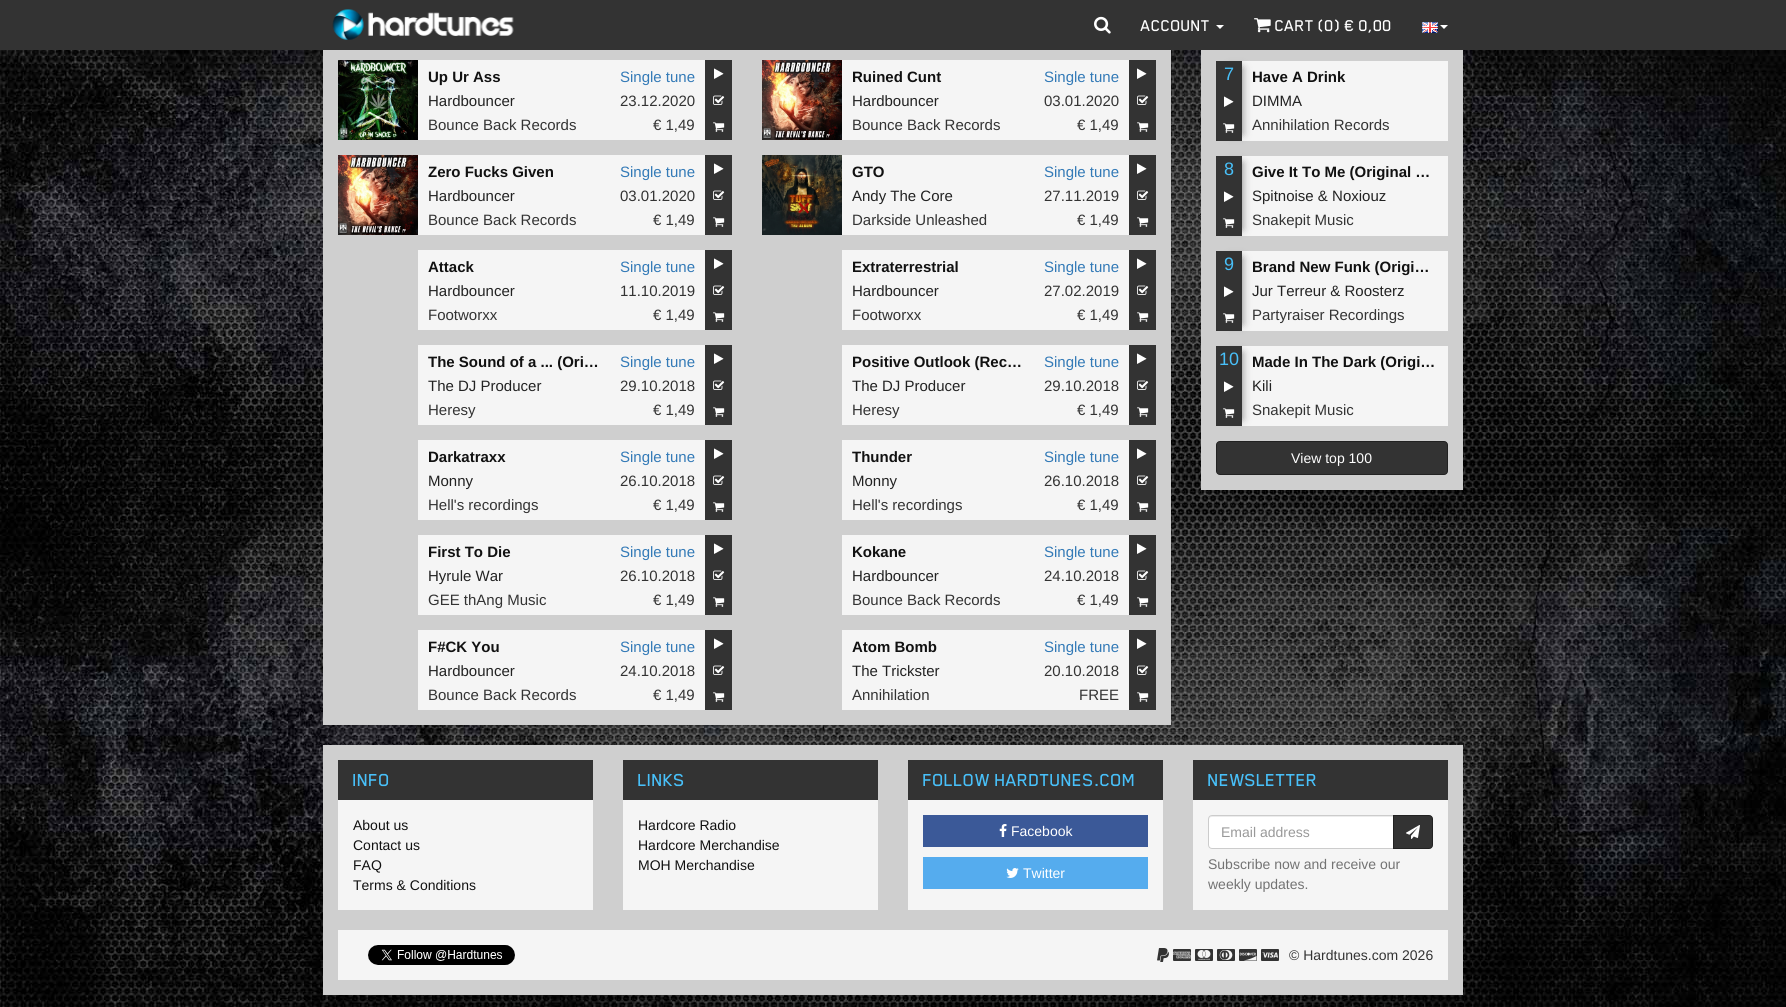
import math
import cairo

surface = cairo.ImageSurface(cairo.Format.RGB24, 1786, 1007)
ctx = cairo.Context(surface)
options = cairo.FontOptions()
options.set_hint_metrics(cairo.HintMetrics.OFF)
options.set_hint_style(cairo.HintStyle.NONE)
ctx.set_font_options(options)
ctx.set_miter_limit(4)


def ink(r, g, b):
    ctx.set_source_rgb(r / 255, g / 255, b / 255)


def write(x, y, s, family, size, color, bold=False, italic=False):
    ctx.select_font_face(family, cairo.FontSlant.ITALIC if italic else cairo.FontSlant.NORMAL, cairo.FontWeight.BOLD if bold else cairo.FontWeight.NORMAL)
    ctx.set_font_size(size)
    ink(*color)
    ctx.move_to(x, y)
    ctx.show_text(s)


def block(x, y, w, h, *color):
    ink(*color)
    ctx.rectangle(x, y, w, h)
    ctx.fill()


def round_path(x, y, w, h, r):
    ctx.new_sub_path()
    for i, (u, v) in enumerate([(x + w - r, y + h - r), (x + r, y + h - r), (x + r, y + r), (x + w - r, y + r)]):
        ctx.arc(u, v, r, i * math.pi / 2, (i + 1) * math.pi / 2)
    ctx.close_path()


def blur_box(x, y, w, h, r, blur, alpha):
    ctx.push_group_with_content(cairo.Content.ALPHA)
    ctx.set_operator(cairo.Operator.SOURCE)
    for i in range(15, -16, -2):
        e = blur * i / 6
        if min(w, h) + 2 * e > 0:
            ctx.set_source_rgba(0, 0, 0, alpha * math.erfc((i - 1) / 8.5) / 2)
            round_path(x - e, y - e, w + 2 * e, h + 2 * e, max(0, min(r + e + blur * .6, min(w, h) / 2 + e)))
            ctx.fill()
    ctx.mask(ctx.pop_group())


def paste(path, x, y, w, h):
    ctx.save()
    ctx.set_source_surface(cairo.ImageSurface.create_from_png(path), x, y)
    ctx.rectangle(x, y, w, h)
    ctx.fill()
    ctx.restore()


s1 = dict(family="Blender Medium", size=18, color=(255, 255, 255))
s2 = dict(family="Liberation Sans", size=15, color=(17, 17, 17), bold=True)
s3 = dict(family="Liberation Sans", size=15, color=(34, 34, 34))
s4 = dict(family="Liberation Sans", size=15, color=(51, 51, 51))
s5 = dict(family="Liberation Sans", size=15, color=(51, 122, 183))
s6 = dict(family="Liberation Sans", size=18, color=(72, 192, 249))
s7 = dict(family="Liberation Sans", size=14, color=(255, 255, 255))
s8 = dict(family="Blender Medium", size=20, color=(72, 192, 249))
s9 = dict(family="Liberation Sans", size=14, color=(17, 17, 17))
s10 = dict(family="Liberation Sans", size=14, color=(153, 153, 153))
s11 = dict(family="Liberation Sans", size=14, color=(115, 115, 115))
s12 = dict(family="Liberation Sans", size=14, color=(51, 51, 51))

ink(255, 255, 255)
ctx.paint()
paste("pic1.png", 0, 50, 1786, 957)
block(0, 0, 1786, 50, 51, 51, 51)
paste("pic2.png", 332, 9, 182, 31)
paste("pic3.png", 1094, 16, 17, 18)
write(1141, 31, "ACCOUNT", **s1)
ctx.new_path()
ctx.move_to(1216, 25)
ctx.line_to(1224, 25)
ctx.line_to(1220, 29)
ctx.close_path()
ctx.fill()
paste("pic4.png", 1254, 18, 17, 15)
write(1275, 31, "CART (0) € 0,00", **s1)
paste("pic5.png", 1422, 22, 16, 11)
ctx.new_path()
ctx.move_to(1440, 25)
ctx.line_to(1448, 25)
ctx.line_to(1444, 29)
ctx.close_path()
ctx.fill()
block(323, 50, 848, 675, 207, 207, 207)
paste("pic6.png", 338, 60, 80, 80)
block(418, 60, 287, 80, 245, 245, 245)
write(428, 82, "Up Ur Ass", **s2)
write(428, 106, "Hardbouncer", **s3)
write(428, 130, "Bounce Back Records", **s4)
write(620, 82, "Single tune", **s5)
write(620, 106, "23.12.2020", **s4)
write(653, 130, "€ 1,49", **s4)
block(705, 60, 27, 80, 51, 51, 51)
paste("pic7.png", 714, 68, 10, 11)
paste("pic8.png", 713, 95, 12, 10)
paste("pic9.png", 713, 122, 12, 10)
paste("pic10.png", 762, 60, 80, 80)
block(842, 60, 287, 80, 245, 245, 245)
write(852, 82, "Ruined Cunt", **s2)
write(852, 106, "Hardbouncer", **s3)
write(852, 130, "Bounce Back Records", **s4)
write(1044, 82, "Single tune", **s5)
write(1044, 106, "03.01.2020", **s4)
write(1077, 130, "€ 1,49", **s4)
block(1129, 60, 27, 80, 51, 51, 51)
paste("pic7.png", 1137, 68, 10, 11)
paste("pic8.png", 1137, 95, 12, 10)
paste("pic9.png", 1137, 122, 12, 10)
paste("pic11.png", 338, 155, 80, 80)
block(418, 155, 287, 80, 245, 245, 245)
write(428, 177, "Zero Fucks Given", **s2)
write(428, 201, "Hardbouncer", **s3)
write(428, 225, "Bounce Back Records", **s4)
write(620, 177, "Single tune", **s5)
write(620, 201, "03.01.2020", **s4)
write(653, 225, "€ 1,49", **s4)
block(705, 155, 27, 80, 51, 51, 51)
paste("pic7.png", 714, 163, 10, 11)
paste("pic8.png", 713, 190, 12, 10)
paste("pic9.png", 713, 217, 12, 10)
paste("pic12.png", 762, 155, 80, 80)
block(842, 155, 287, 80, 245, 245, 245)
write(852, 177, "GTO", **s2)
write(852, 201, "Andy The Core", **s3)
write(852, 225, "Darkside Unleashed", **s4)
write(1044, 177, "Single tune", **s5)
write(1044, 201, "27.11.2019", **s4)
write(1077, 225, "€ 1,49", **s4)
block(1129, 155, 27, 80, 51, 51, 51)
paste("pic7.png", 1137, 163, 10, 11)
paste("pic8.png", 1137, 190, 12, 10)
paste("pic9.png", 1137, 217, 12, 10)
block(418, 250, 287, 80, 245, 245, 245)
write(428, 272, "Attack", **s2)
write(428, 296, "Hardbouncer", **s3)
write(428, 320, "Footworxx", **s4)
write(620, 272, "Single tune", **s5)
write(620, 296, "11.10.2019", **s4)
write(653, 320, "€ 1,49", **s4)
block(705, 250, 27, 80, 51, 51, 51)
paste("pic7.png", 714, 258, 10, 11)
paste("pic8.png", 713, 285, 12, 10)
paste("pic9.png", 713, 312, 12, 10)
block(842, 250, 287, 80, 245, 245, 245)
write(852, 272, "Extraterrestrial", **s2)
write(852, 296, "Hardbouncer", **s3)
write(852, 320, "Footworxx", **s4)
write(1044, 272, "Single tune", **s5)
write(1044, 296, "27.02.2019", **s4)
write(1077, 320, "€ 1,49", **s4)
block(1129, 250, 27, 80, 51, 51, 51)
paste("pic7.png", 1137, 258, 10, 11)
paste("pic8.png", 1137, 285, 12, 10)
paste("pic9.png", 1137, 312, 12, 10)
block(418, 345, 287, 80, 245, 245, 245)
write(428, 367, "The Sound of a ... (Ori…", **s2)
write(428, 391, "The DJ Producer", **s3)
write(428, 415, "Heresy", **s4)
write(620, 367, "Single tune", **s5)
write(620, 391, "29.10.2018", **s4)
write(653, 415, "€ 1,49", **s4)
block(705, 345, 27, 80, 51, 51, 51)
paste("pic7.png", 714, 353, 10, 11)
paste("pic8.png", 713, 380, 12, 10)
paste("pic9.png", 713, 407, 12, 10)
block(842, 345, 287, 80, 245, 245, 245)
write(852, 367, "Positive Outlook (Rec…", **s2)
write(852, 391, "The DJ Producer", **s3)
write(852, 415, "Heresy", **s4)
write(1044, 367, "Single tune", **s5)
write(1044, 391, "29.10.2018", **s4)
write(1077, 415, "€ 1,49", **s4)
block(1129, 345, 27, 80, 51, 51, 51)
paste("pic7.png", 1137, 353, 10, 11)
paste("pic8.png", 1137, 380, 12, 10)
paste("pic9.png", 1137, 407, 12, 10)
block(418, 440, 287, 80, 245, 245, 245)
write(428, 462, "Darkatraxx", **s2)
write(428, 486, "Monny", **s3)
write(428, 510, "Hell's recordings", **s4)
write(620, 462, "Single tune", **s5)
write(620, 486, "26.10.2018", **s4)
write(653, 510, "€ 1,49", **s4)
block(705, 440, 27, 80, 51, 51, 51)
paste("pic7.png", 714, 448, 10, 11)
paste("pic8.png", 713, 475, 12, 10)
paste("pic9.png", 713, 502, 12, 10)
block(842, 440, 287, 80, 245, 245, 245)
write(852, 462, "Thunder", **s2)
write(852, 486, "Monny", **s3)
write(852, 510, "Hell's recordings", **s4)
write(1044, 462, "Single tune", **s5)
write(1044, 486, "26.10.2018", **s4)
write(1077, 510, "€ 1,49", **s4)
block(1129, 440, 27, 80, 51, 51, 51)
paste("pic7.png", 1137, 448, 10, 11)
paste("pic8.png", 1137, 475, 12, 10)
paste("pic9.png", 1137, 502, 12, 10)
block(418, 535, 287, 80, 245, 245, 245)
write(428, 557, "First To Die", **s2)
write(428, 581, "Hyrule War", **s3)
write(428, 605, "GEE thAng Music", **s4)
write(620, 557, "Single tune", **s5)
write(620, 581, "26.10.2018", **s4)
write(653, 605, "€ 1,49", **s4)
block(705, 535, 27, 80, 51, 51, 51)
paste("pic7.png", 714, 543, 10, 11)
paste("pic8.png", 713, 570, 12, 10)
paste("pic9.png", 713, 597, 12, 10)
block(842, 535, 287, 80, 245, 245, 245)
write(852, 557, "Kokane", **s2)
write(852, 581, "Hardbouncer", **s3)
write(852, 605, "Bounce Back Records", **s4)
write(1044, 557, "Single tune", **s5)
write(1044, 581, "24.10.2018", **s4)
write(1077, 605, "€ 1,49", **s4)
block(1129, 535, 27, 80, 51, 51, 51)
paste("pic7.png", 1137, 543, 10, 11)
paste("pic8.png", 1137, 570, 12, 10)
paste("pic9.png", 1137, 597, 12, 10)
block(418, 630, 287, 80, 245, 245, 245)
write(428, 652, "F#CK You", **s2)
write(428, 676, "Hardbouncer", **s3)
write(428, 700, "Bounce Back Records", **s4)
write(620, 652, "Single tune", **s5)
write(620, 676, "24.10.2018", **s4)
write(653, 700, "€ 1,49", **s4)
block(705, 630, 27, 80, 51, 51, 51)
paste("pic7.png", 714, 638, 10, 11)
paste("pic8.png", 713, 665, 12, 10)
paste("pic9.png", 713, 692, 12, 10)
block(842, 630, 287, 80, 245, 245, 245)
write(852, 652, "Atom Bomb", **s2)
write(852, 676, "The Trickster", **s3)
write(852, 700, "Annihilation", **s4)
write(1044, 652, "Single tune", **s5)
write(1044, 676, "20.10.2018", **s4)
write(1079, 700, "FREE", **s4)
block(1129, 630, 27, 80, 51, 51, 51)
paste("pic7.png", 1137, 638, 10, 11)
paste("pic8.png", 1137, 665, 12, 10)
paste("pic9.png", 1137, 692, 12, 10)
block(1201, 50, 262, 440, 207, 207, 207)
block(1242, 61, 206, 80, 245, 245, 245)
ink(17, 17, 17)
blur_box(1230, 68, 12, 66, 0, 4.5, 0.5)
block(1216, 61, 26, 80, 51, 51, 51)
write(1224, 80, "7", **s6)
paste("pic7.png", 1224, 96, 10, 11)
paste("pic9.png", 1223, 123, 12, 10)
write(1252, 82, "Have A Drink", **s2)
write(1252, 106, "DIMMA", **s3)
write(1252, 130, "Annihilation Records", **s4)
block(1242, 156, 206, 80, 245, 245, 245)
ink(17, 17, 17)
blur_box(1230, 163, 12, 66, 0, 4.5, 0.5)
block(1216, 156, 26, 80, 51, 51, 51)
write(1224, 175, "8", **s6)
paste("pic7.png", 1224, 191, 10, 11)
paste("pic9.png", 1223, 218, 12, 10)
write(1252, 177, "Give It To Me (Original …", **s2)
write(1252, 201, "Spitnoise & Noxiouz", **s3)
write(1252, 225, "Snakepit Music", **s4)
block(1242, 251, 206, 80, 245, 245, 245)
ink(17, 17, 17)
blur_box(1230, 258, 12, 66, 0, 4.5, 0.5)
block(1216, 251, 26, 80, 51, 51, 51)
write(1224, 270, "9", **s6)
paste("pic7.png", 1224, 286, 10, 11)
paste("pic9.png", 1223, 313, 12, 10)
write(1252, 272, "Brand New Funk (Origi…", **s2)
write(1252, 296, "Jur Terreur & Roosterz", **s3)
write(1252, 320, "Partyraiser Recordings", **s4)
block(1242, 346, 206, 80, 245, 245, 245)
ink(17, 17, 17)
blur_box(1230, 353, 12, 66, 0, 4.5, 0.5)
block(1216, 346, 26, 80, 51, 51, 51)
write(1219, 365, "10", **s6)
paste("pic7.png", 1224, 381, 10, 11)
paste("pic9.png", 1223, 408, 12, 10)
write(1252, 367, "Made In The Dark (Origi…", **s2)
write(1252, 391, "Kili", **s3)
write(1252, 415, "Snakepit Music", **s4)
round_path(1216.5, 441.5, 231, 33, 3.5)
ctx.fill_preserve()
ink(34, 34, 34)
ctx.set_line_width(1)
ctx.stroke()
write(1291, 463, "View top 100", **s7)
block(323, 745, 1140, 250, 207, 207, 207)
block(338, 760, 255, 40, 51, 51, 51)
write(353, 786, "INFO", **s8)
block(338, 800, 255, 110, 245, 245, 245)
write(353, 830, "About us", **s9)
write(353, 850, "Contact us", **s9)
write(353, 870, "FAQ", **s9)
write(353, 890, "Terms & Conditions", **s9)
block(623, 760, 255, 40, 51, 51, 51)
write(638, 786, "LINKS", **s8)
block(623, 800, 255, 110, 245, 245, 245)
write(638, 830, "Hardcore Radio", **s9)
write(638, 850, "Hardcore Merchandise", **s9)
write(638, 870, "MOH Merchandise", **s9)
block(908, 760, 255, 40, 51, 51, 51)
write(923, 786, "FOLLOW HARDTUNES.COM", **s8)
block(908, 800, 255, 110, 245, 245, 245)
block(923, 815, 225, 32, 59, 89, 152)
paste("pic13.png", 999, 824, 8, 13)
write(1011, 836, "Facebook", **s7)
block(923, 857, 225, 32, 85, 172, 238)
paste("pic14.png", 1006, 868, 13, 10)
write(1023, 878, "Twitter", **s7)
block(1193, 760, 255, 40, 51, 51, 51)
write(1208, 786, "NEWSLETTER", **s8)
block(1193, 800, 255, 110, 245, 245, 245)
ink(255, 255, 255)
ctx.new_path()
ctx.move_to(1212, 815)
ctx.line_to(1394, 815)
ctx.line_to(1394, 849)
ctx.line_to(1212, 849)
ctx.curve_to(1210, 849, 1208, 847, 1208, 845)
ctx.line_to(1208, 819)
ctx.curve_to(1208, 817, 1210, 815, 1212, 815)
ctx.close_path()
ctx.fill()
ink(236, 236, 236)
ctx.new_path()
ctx.move_to(1212, 817)
ctx.line_to(1393, 817)
ctx.line_to(1393, 816)
ctx.line_to(1211, 816)
ctx.curve_to(1209, 817, 1209, 818, 1209, 820)
ctx.curve_to(1209, 818, 1210, 817, 1212, 817)
ctx.close_path()
ctx.fill()
ctx.new_path()
ctx.move_to(1212, 815.5)
ctx.line_to(1393.5, 815.5)
ctx.line_to(1393.5, 848.5)
ctx.line_to(1212, 848.5)
ctx.curve_to(1210, 848.5, 1208.5, 847, 1208.5, 845)
ctx.line_to(1208.5, 819)
ctx.curve_to(1208.5, 817, 1210, 815.5, 1212, 815.5)
ctx.close_path()
ink(204, 204, 204)
ctx.stroke()
write(1221, 837, "Email address", **s10)
ink(51, 51, 51)
ctx.new_path()
ctx.move_to(1393.5, 815.5)
ctx.line_to(1429, 815.5)
ctx.curve_to(1431, 815.5, 1432.5, 817, 1432.5, 819)
ctx.line_to(1432.5, 845)
ctx.curve_to(1432.5, 847, 1431, 848.5, 1429, 848.5)
ctx.line_to(1393.5, 848.5)
ctx.close_path()
ctx.fill_preserve()
ink(34, 34, 34)
ctx.stroke()
paste("pic15.png", 1406, 825, 14, 14)
write(1208, 869, "Subscribe now and receive our", **s11)
write(1208, 889, "weekly updates.", **s11)
block(338, 930, 1110, 50, 245, 245, 245)
paste("pic16.png", 368, 945, 147, 20)
paste("pic17.png", 1157, 948, 12, 14)
paste("pic18.png", 1173, 949, 18, 12)
paste("pic19.png", 1195, 949, 18, 12)
paste("pic20.png", 1217, 949, 18, 12)
paste("pic21.png", 1239, 949, 18, 12)
paste("pic22.png", 1261, 949, 18, 12)
write(1289, 960, "© Hardtunes.com 2026", **s12)
surface.write_to_png("screenshot.png")
